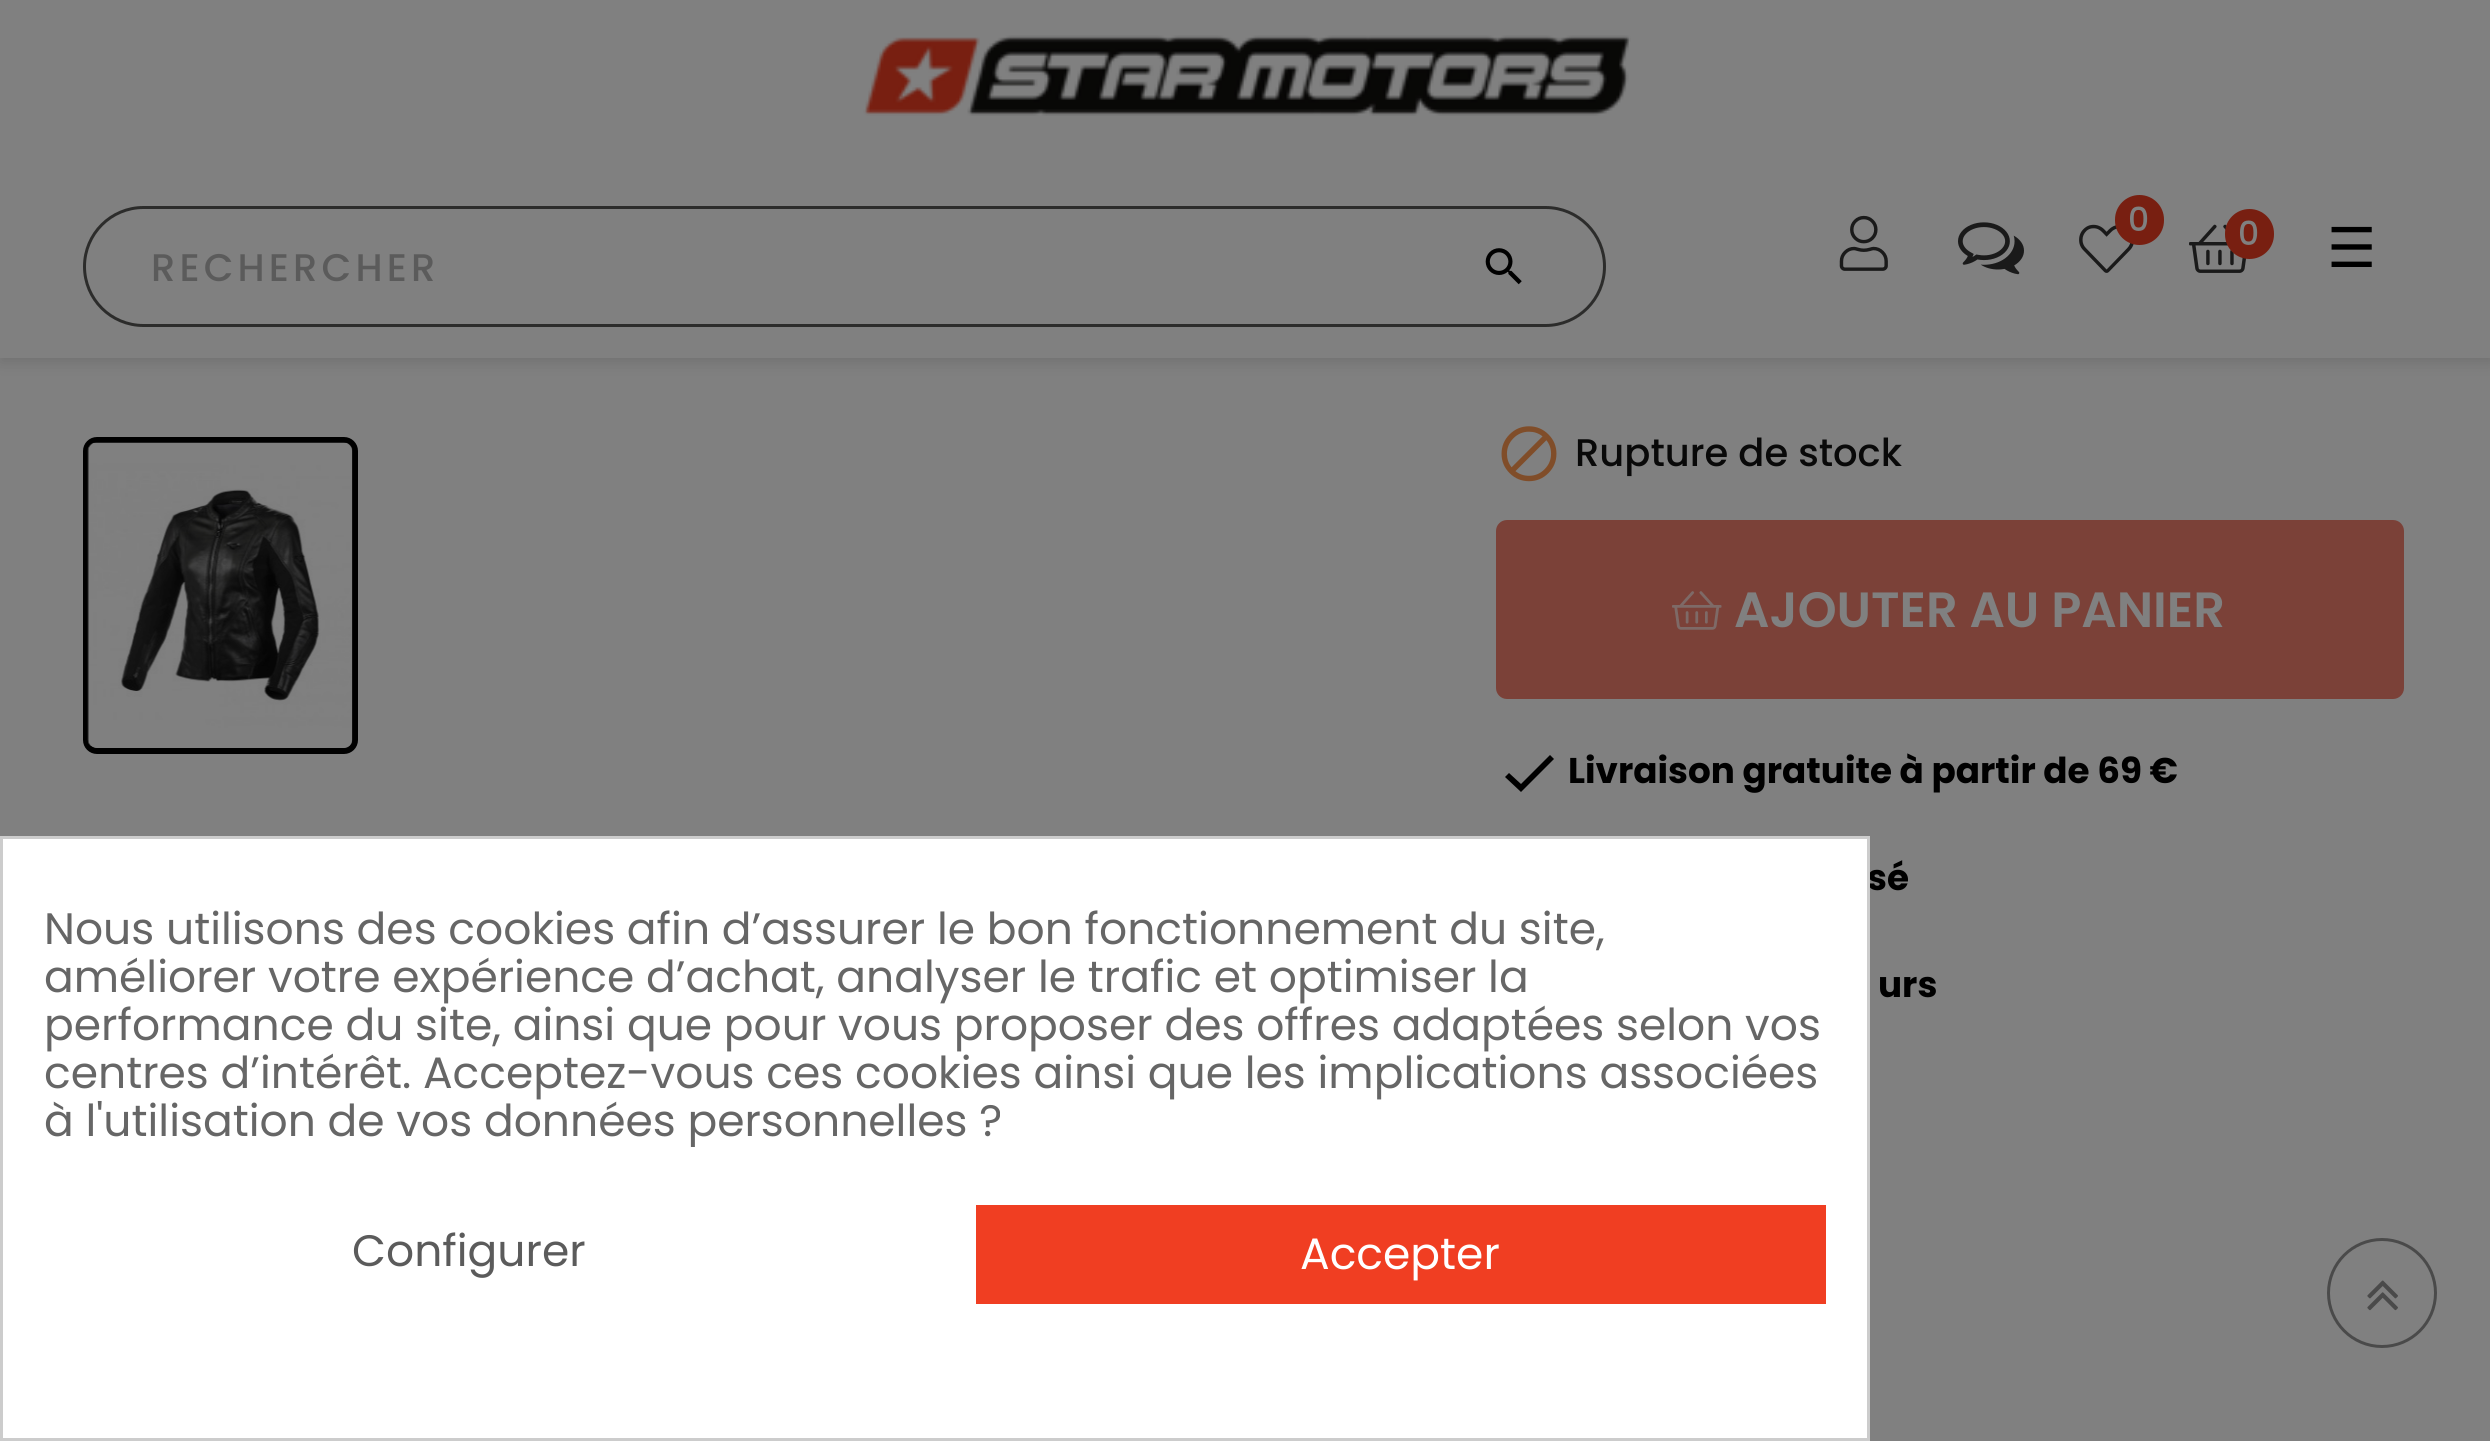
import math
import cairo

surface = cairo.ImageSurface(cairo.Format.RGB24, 2490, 1441)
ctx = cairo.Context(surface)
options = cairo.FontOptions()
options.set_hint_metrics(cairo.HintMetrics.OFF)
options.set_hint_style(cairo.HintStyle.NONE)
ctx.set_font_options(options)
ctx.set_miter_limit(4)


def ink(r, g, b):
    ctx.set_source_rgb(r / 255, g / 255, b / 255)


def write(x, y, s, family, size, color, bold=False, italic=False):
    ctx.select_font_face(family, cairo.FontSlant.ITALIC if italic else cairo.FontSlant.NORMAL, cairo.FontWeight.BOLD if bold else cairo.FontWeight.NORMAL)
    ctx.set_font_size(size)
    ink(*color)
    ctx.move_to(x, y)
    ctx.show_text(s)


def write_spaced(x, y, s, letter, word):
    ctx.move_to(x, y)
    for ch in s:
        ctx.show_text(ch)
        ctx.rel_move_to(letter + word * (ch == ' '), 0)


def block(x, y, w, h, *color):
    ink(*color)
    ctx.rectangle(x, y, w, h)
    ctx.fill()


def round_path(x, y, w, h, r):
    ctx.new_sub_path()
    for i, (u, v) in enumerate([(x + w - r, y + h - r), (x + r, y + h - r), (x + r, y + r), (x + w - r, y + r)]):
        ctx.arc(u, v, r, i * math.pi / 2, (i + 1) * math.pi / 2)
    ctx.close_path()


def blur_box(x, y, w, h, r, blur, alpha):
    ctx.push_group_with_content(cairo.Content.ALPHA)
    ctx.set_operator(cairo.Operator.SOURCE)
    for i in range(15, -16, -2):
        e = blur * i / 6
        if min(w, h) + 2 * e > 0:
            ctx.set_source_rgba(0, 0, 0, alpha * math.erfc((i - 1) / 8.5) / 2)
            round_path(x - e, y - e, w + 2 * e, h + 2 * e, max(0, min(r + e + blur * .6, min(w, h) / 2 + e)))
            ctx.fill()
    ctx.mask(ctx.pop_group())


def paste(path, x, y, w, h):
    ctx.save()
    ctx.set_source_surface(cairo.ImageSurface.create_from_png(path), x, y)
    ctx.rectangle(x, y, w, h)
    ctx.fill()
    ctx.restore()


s1 = dict(family="Poppins Medium", size=33, color=(128, 128, 128))
s2 = dict(family="DejaVu Sans", size=55, color=(0, 0, 0))
s3 = dict(family="Poppins Medium", size=38.5, color=(9, 9, 9))
s4 = dict(family="Poppins SemiBold", size=49.5, color=(128, 128, 128))
s5 = dict(family="Poppins", size=35.75, color=(0, 0, 0), bold=True)
s6 = dict(family="Poppins", size=44, color=(102, 102, 102))
s7 = dict(family="Poppins", size=44, color=(91, 91, 91))
s8 = dict(family="Poppins", size=44, color=(255, 255, 255))

ink(128, 128, 128)
ctx.paint()
ink(0, 0, 0)
blur_box(0, 6, 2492, 357, 0, 7, 0.11)
block(0, 0, 2490, 358, 128, 128, 128)
paste("pic1.png", 863, 35, 768, 81)
paste("pic2.png", 1485, 248, 37, 37)
round_path(84.5, 207.5, 1520, 118, 59)
ink(44, 44, 43)
ctx.set_line_width(3)
ctx.stroke()
ctx.select_font_face("Poppins Medium")
ctx.set_font_size(38.5)
ink(91, 91, 91)
write_spaced(151, 281, "RECHERCHER", 4.1, 0)
paste("pic3.png", 1839, 215, 49, 56)
paste("pic4.png", 1958, 222, 66, 53)
paste("pic5.png", 2079, 224, 55, 49)
ink(120, 31, 17)
round_path(2115, 195, 49, 50, 24.5)
ctx.fill()
write(2128, 231, "0", **s1)
paste("pic6.png", 2189, 224, 58, 49)
ink(120, 31, 17)
round_path(2225, 209, 49, 50, 24.5)
ctx.fill()
write(2238, 245, "0", **s1)
write(2327, 267, "☰", **s2)
round_path(86, 440, 269, 311, 11)
ctx.set_line_width(6)
ctx.stroke()
paste("pic7.png", 87, 442, 266, 306)
paste("pic8.png", 1501, 426, 56, 56)
write(1575, 466, "Rupture de stock", **s3)
ink(123, 65, 56)
round_path(1496, 520, 908, 179, 11)
ctx.fill()
paste("pic9.png", 1672, 591, 50, 39)
write(1734, 627, "AJOUTER AU PANIER", **s4)
ink(0, 0, 0)
ctx.new_path()
ctx.move_to(1521, 784)
ctx.line_to(1550, 755)
ctx.line_to(1554, 759)
ctx.line_to(1521, 792)
ctx.line_to(1505, 777)
ctx.line_to(1509, 773)
ctx.close_path()
ctx.fill()
write(1568, 783, "Livraison gratuite à partir de 69 €", **s5)
write(1867, 890, "sé", **s5)
write(1878, 997, "urs", **s5)
ctx.new_path()
ctx.arc(2382, 1293, 53.5, 0, 2 * math.pi)
ink(74, 74, 74)
ctx.set_line_width(3)
ctx.stroke()
paste("pic10.png", 2367, 1280, 31, 31)
ink(255, 255, 255)
ctx.rectangle(1.5, 837.5, 1867, 602)
ctx.fill_preserve()
ink(204, 204, 204)
ctx.stroke()
write(44, 944, "Nous utilisons des cookies afin d’assurer le bon fonctionnement du site,", **s6)
write(44, 992, "améliorer votre expérience d’achat, analyser le trafic et optimiser la", **s6)
write(44, 1040, "performance du site, ainsi que pour vous proposer des offres adaptées selon vos", **s6)
write(44, 1088, "centres d’intérêt. Acceptez-vous ces cookies ainsi que les implications associées", **s6)
ctx.save()
ctx.rectangle(44, 905, 1782, 242)
ctx.clip()
write(44, 1136, "à l'utilisation de vos données personnelles ?", **s6)
ctx.restore()
write(352, 1266, "Configurer", **s7)
block(976, 1205, 850, 99, 240, 62, 34)
write(1300, 1269, "Accepter", **s8)
surface.write_to_png("screenshot.png")
